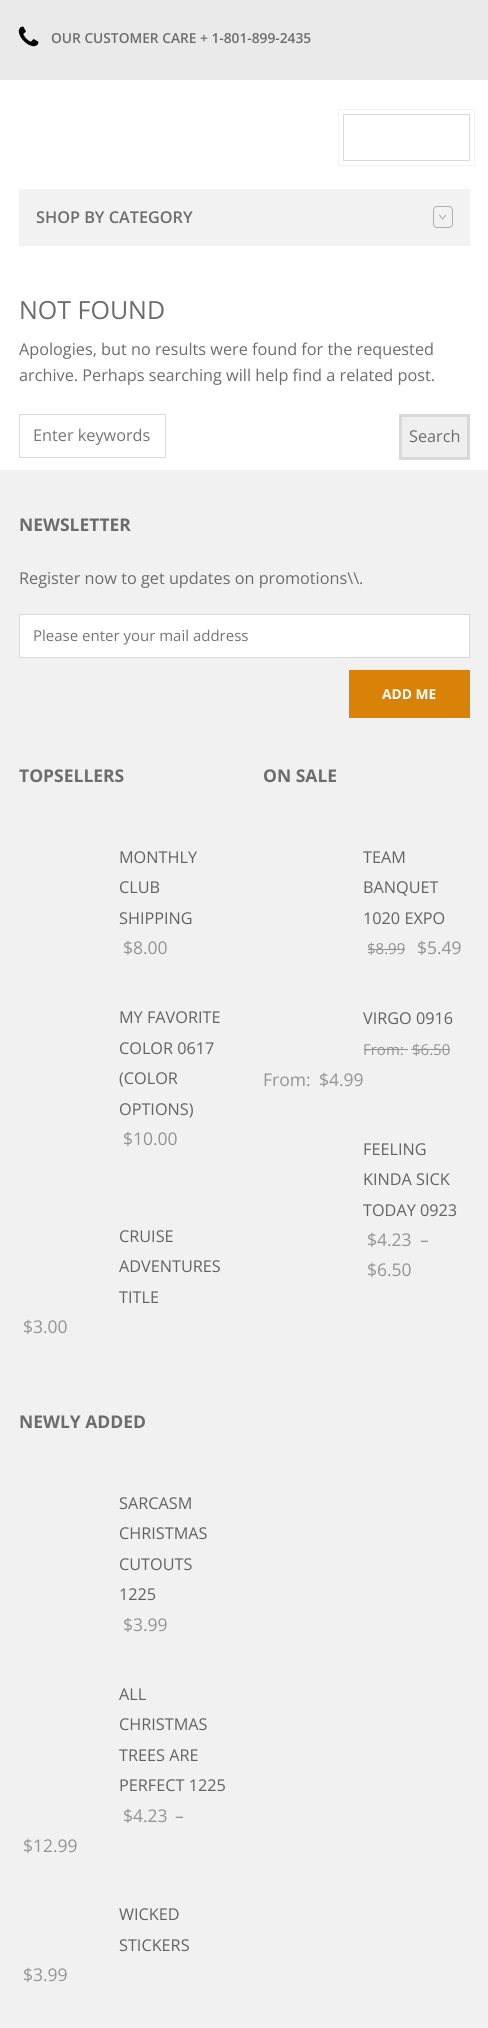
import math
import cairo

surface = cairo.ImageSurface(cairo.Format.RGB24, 488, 2028)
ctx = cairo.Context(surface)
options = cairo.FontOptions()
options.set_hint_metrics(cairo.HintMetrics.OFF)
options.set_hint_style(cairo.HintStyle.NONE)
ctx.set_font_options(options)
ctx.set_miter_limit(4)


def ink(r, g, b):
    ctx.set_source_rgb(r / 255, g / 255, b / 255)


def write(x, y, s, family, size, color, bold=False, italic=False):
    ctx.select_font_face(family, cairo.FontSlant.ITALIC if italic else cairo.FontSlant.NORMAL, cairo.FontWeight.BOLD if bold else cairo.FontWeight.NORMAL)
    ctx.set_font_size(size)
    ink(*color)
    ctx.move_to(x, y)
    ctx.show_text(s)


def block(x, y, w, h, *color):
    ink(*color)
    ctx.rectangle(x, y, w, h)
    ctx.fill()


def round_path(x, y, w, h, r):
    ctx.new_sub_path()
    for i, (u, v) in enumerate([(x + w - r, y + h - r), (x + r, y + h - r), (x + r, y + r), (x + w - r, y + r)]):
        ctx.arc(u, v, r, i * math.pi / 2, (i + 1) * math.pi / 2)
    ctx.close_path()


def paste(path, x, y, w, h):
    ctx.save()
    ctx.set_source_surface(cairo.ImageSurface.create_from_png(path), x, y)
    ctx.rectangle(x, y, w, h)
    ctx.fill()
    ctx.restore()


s1 = dict(family="Open Sans SemiBold", size=13.75, color=(109, 108, 108))
s2 = dict(family="Open Sans SemiBold", size=16.25, color=(109, 108, 108))
s3 = dict(family="Open Sans", size=25, color=(109, 108, 108))
s4 = dict(family="Open Sans", size=16.25, color=(109, 108, 108))
s5 = dict(family="Open Sans", size=16.25, color=(117, 117, 117))
s6 = dict(family="Open Sans", size=17.5, color=(109, 108, 108), bold=True)
s7 = dict(family="Open Sans", size=15, color=(117, 117, 117))
s8 = dict(family="Open Sans", size=13.75, color=(255, 255, 255), bold=True)
s9 = dict(family="Open Sans", size=16.25, color=(98, 98, 98))
s10 = dict(family="Open Sans", size=17.5, color=(147, 147, 147))
s11 = dict(family="Open Sans", size=15, color=(147, 147, 147))

ink(255, 255, 255)
ctx.paint()
block(0, 0, 488, 80, 234, 234, 234)
paste("pic1.png", 18, 26, 21, 21)
write(51, 43, "OUR CUSTOMER CARE + 1-801-899-2435", **s1)
ctx.rectangle(343.5, 114.5, 126, 46)
ink(219, 216, 216)
ctx.set_line_width(1)
ctx.stroke()
ctx.rectangle(338.5, 109.5, 136, 56)
ink(242, 242, 242)
ctx.stroke()
block(19, 189, 451, 57, 242, 242, 242)
write(36, 223, "SHOP BY CATEGORY", **s2)
round_path(433.5, 206.5, 19, 21, 3.5)
ink(176, 175, 175)
ctx.stroke()
paste("pic2.png", 439, 214, 8, 6)
write(19, 319, "NOT FOUND", **s3)
write(19, 355, "Apologies, but no results were found for the requested", **s4)
write(19, 381, "archive. Perhaps searching will help find a related post.", **s4)
ctx.rectangle(19.5, 414.5, 146, 43)
ink(219, 216, 216)
ctx.stroke()
write(33, 441, "Enter keywords", **s5)
ink(239, 239, 239)
ctx.rectangle(400.5, 415.5, 68, 43)
ctx.fill_preserve()
ink(219, 216, 216)
ctx.set_line_width(3)
ctx.stroke()
write(409, 442, "Search", **s4)
block(0, 470, 488, 1558, 241, 241, 241)
write(19, 531, "NEWSLETTER", **s6)
write(19, 584, "Register now to get updates on promotions\\\\.", **s4)
ink(255, 255, 255)
ctx.rectangle(19.5, 614.5, 450, 43)
ctx.fill_preserve()
ink(219, 216, 216)
ctx.set_line_width(1)
ctx.stroke()
write(33, 641, "Please enter your mail address", **s7)
block(349, 670, 121, 48, 218, 130, 7)
write(382, 699, "ADD ME", **s8)
write(19, 782, "TOPSELLERS", **s6)
write(119, 863, "MONTHLY", **s9)
write(119, 893, "CLUB", **s9)
write(119, 924, "SHIPPING", **s9)
write(123, 954, "$8.00", **s10)
write(119, 1023, "MY FAVORITE", **s9)
write(119, 1054, "COLOR 0617", **s9)
write(119, 1084, "(COLOR", **s9)
write(119, 1115, "OPTIONS)", **s9)
write(123, 1145, "$10.00", **s10)
write(119, 1242, "CRUISE", **s9)
write(119, 1272, "ADVENTURES", **s9)
write(119, 1303, "TITLE", **s9)
write(23, 1333, "$3.00", **s10)
write(263, 782, "ON SALE", **s6)
write(363, 863, "TEAM", **s9)
write(363, 893, "BANQUET", **s9)
write(363, 924, "1020 EXPO", **s9)
write(367, 954, "$8.99", **s11)
block(368, 949, 37, 1, 147, 147, 147)
write(417, 954, "$5.49", **s10)
write(363, 1024, "VIRGO 0916", **s9)
write(363, 1055, "From:", **s11)
block(364, 1049, 44, 1, 147, 147, 147)
write(412, 1055, "$6.50", **s11)
block(411, 1049, 39, 1, 147, 147, 147)
write(263, 1086, "From:", **s10)
write(319, 1086, "$4.99", **s10)
write(363, 1155, "FEELING", **s9)
write(363, 1185, "KINDA SICK", **s9)
write(363, 1216, "TODAY 0923", **s9)
write(367, 1246, "$4.23", **s10)
write(420, 1246, "–", **s10)
write(367, 1276, "$6.50", **s10)
write(19, 1428, "NEWLY ADDED", **s6)
write(119, 1509, "SARCASM", **s9)
write(119, 1539, "CHRISTMAS", **s9)
write(119, 1570, "CUTOUTS", **s9)
write(119, 1600, "1225", **s9)
write(123, 1631, "$3.99", **s10)
write(119, 1700, "ALL", **s9)
write(119, 1730, "CHRISTMAS", **s9)
write(119, 1761, "TREES ARE", **s9)
write(119, 1791, "PERFECT 1225", **s9)
write(123, 1822, "$4.23", **s10)
write(175, 1822, "–", **s10)
write(23, 1852, "$12.99", **s10)
write(119, 1920, "WICKED", **s9)
write(119, 1951, "STICKERS", **s9)
write(23, 1981, "$3.99", **s10)
surface.write_to_png("screenshot.png")
